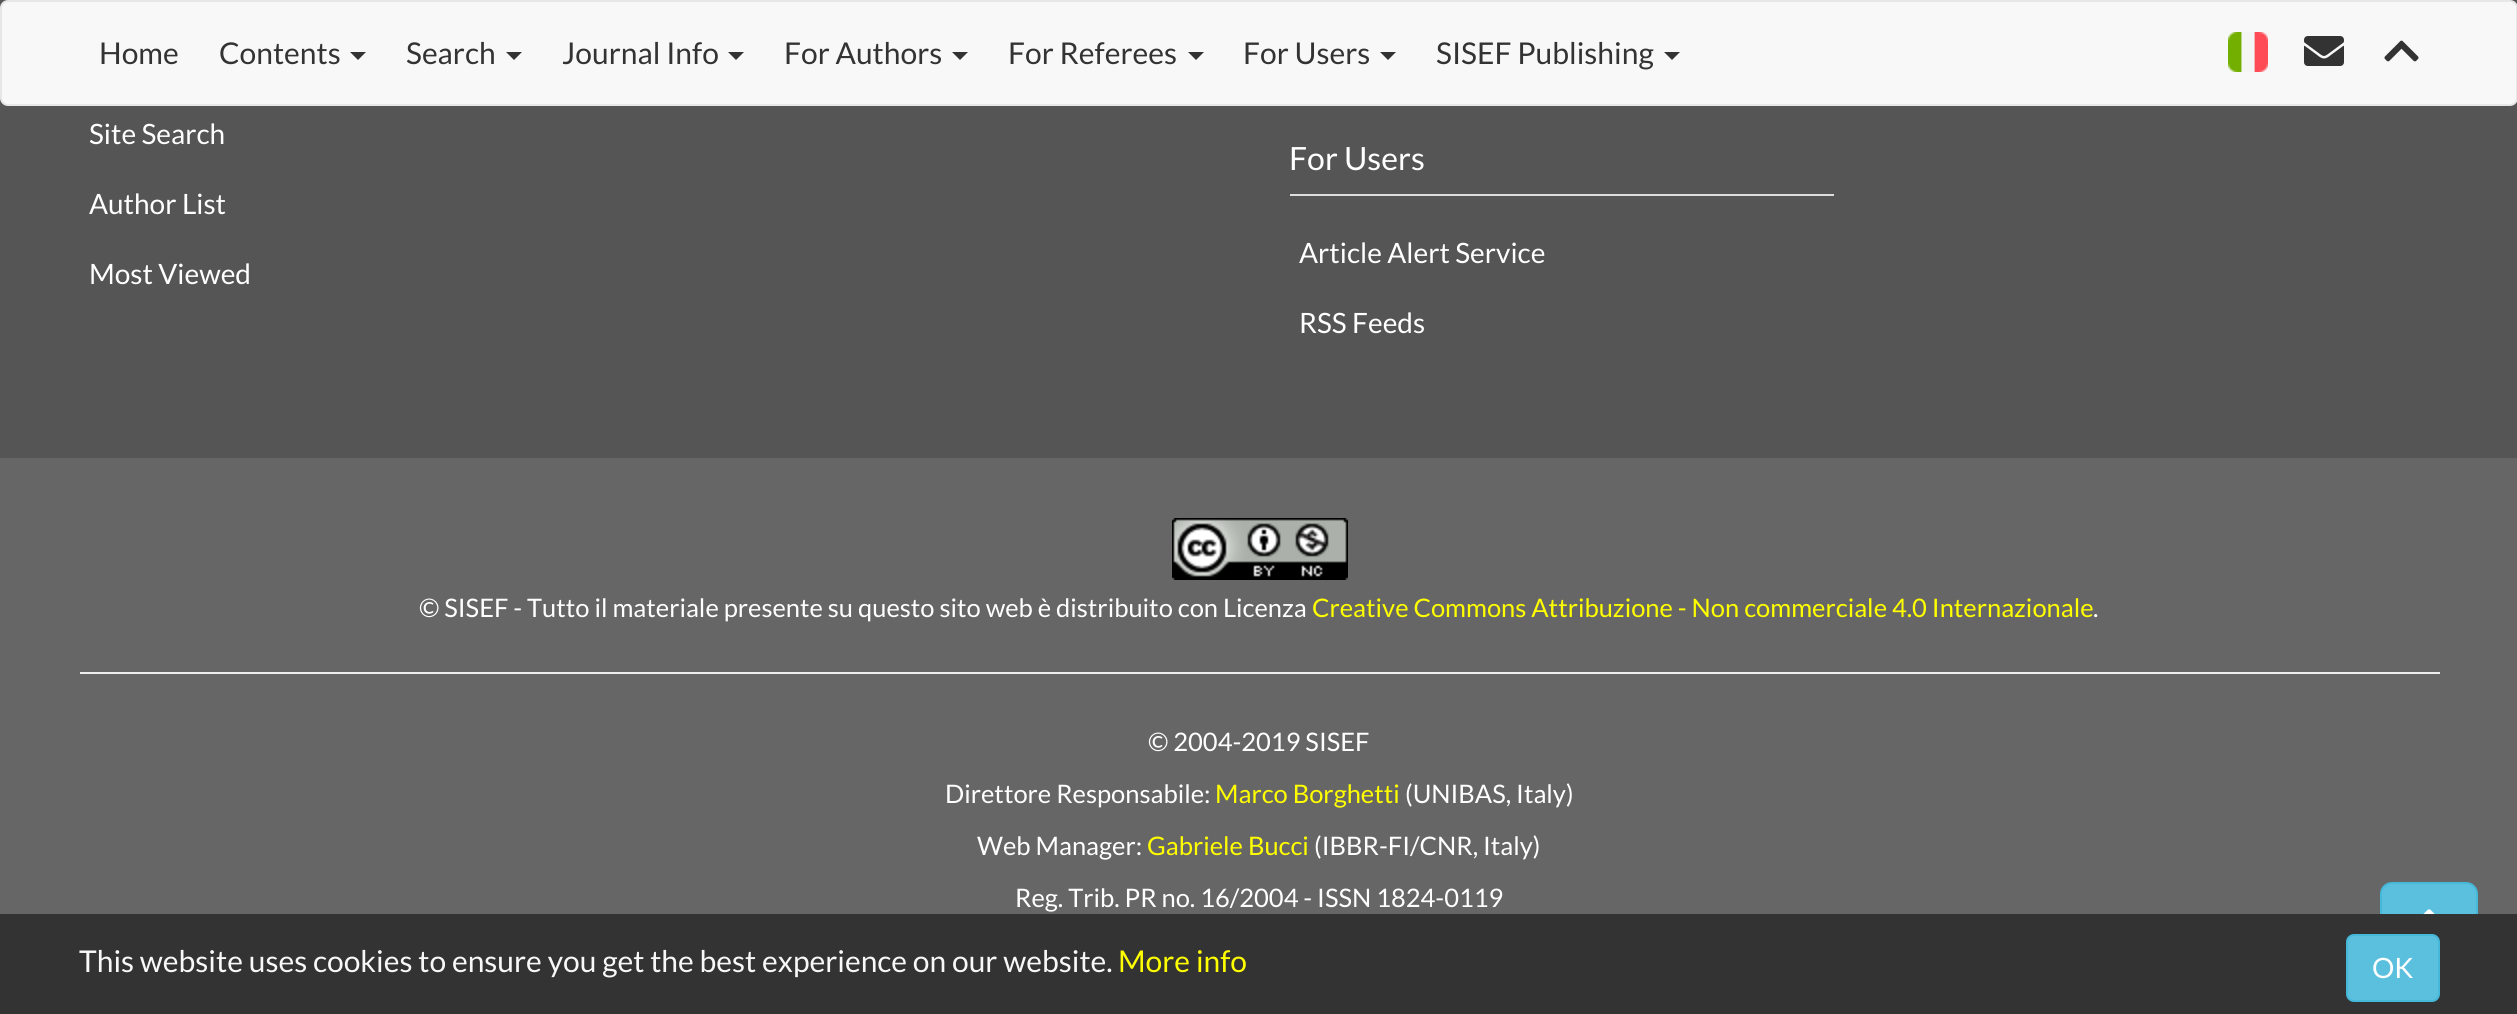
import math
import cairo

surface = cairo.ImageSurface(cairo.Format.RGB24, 2517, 1014)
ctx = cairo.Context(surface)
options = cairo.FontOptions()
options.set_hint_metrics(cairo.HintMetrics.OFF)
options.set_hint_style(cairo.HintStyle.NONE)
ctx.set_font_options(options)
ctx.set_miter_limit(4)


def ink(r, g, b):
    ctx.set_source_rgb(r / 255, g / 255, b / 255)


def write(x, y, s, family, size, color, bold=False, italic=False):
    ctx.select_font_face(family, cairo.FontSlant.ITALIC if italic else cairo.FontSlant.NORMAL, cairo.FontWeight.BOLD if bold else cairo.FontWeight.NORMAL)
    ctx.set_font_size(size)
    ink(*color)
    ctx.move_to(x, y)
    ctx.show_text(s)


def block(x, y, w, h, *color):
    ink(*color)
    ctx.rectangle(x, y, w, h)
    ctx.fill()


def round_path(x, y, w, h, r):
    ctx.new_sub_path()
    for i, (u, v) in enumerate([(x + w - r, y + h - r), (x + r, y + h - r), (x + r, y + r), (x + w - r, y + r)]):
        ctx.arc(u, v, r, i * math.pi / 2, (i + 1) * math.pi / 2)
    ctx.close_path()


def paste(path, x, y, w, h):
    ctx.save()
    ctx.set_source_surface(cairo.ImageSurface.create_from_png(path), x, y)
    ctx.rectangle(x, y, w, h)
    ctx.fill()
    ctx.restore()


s1 = dict(family="Lato", size=30, color=(51, 51, 51))
s2 = dict(family="Lato", size=28, color=(255, 255, 255))
s3 = dict(family="Lato", size=32, color=(255, 255, 255))
s4 = dict(family="Lato", size=25.5, color=(255, 255, 255))
s5 = dict(family="Lato", size=25.5, color=(255, 255, 0))
s6 = dict(family="Lato", size=30, color=(248, 248, 248))
s7 = dict(family="Lato", size=30, color=(255, 255, 0))

ink(85, 85, 85)
ctx.paint()
ink(248, 248, 248)
round_path(1, 1, 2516, 104, 7)
ctx.fill_preserve()
ink(231, 231, 231)
ctx.stroke()
write(99, 64, "Home", **s1)
write(219, 64, "Contents", **s1)
ctx.new_path()
ctx.move_to(350, 52)
ctx.line_to(366, 52)
ctx.line_to(358, 60)
ctx.close_path()
ctx.fill()
write(406, 64, "Search", **s1)
ctx.new_path()
ctx.move_to(506, 52)
ctx.line_to(522, 52)
ctx.line_to(514, 60)
ctx.close_path()
ctx.fill()
write(562, 64, "Journal Info", **s1)
ctx.new_path()
ctx.move_to(728, 52)
ctx.line_to(744, 52)
ctx.line_to(736, 60)
ctx.close_path()
ctx.fill()
write(784, 64, "For Authors", **s1)
ctx.new_path()
ctx.move_to(952, 52)
ctx.line_to(968, 52)
ctx.line_to(960, 60)
ctx.close_path()
ctx.fill()
write(1008, 64, "For Referees", **s1)
ctx.new_path()
ctx.move_to(1188, 52)
ctx.line_to(1204, 52)
ctx.line_to(1196, 60)
ctx.close_path()
ctx.fill()
write(1243, 64, "For Users", **s1)
ctx.new_path()
ctx.move_to(1380, 52)
ctx.line_to(1396, 52)
ctx.line_to(1388, 60)
ctx.close_path()
ctx.fill()
write(1436, 64, "SISEF Publishing", **s1)
ctx.new_path()
ctx.move_to(1664, 52)
ctx.line_to(1680, 52)
ctx.line_to(1672, 60)
ctx.close_path()
ctx.fill()
paste("pic1.png", 2228, 32, 40, 40)
paste("pic2.png", 2304, 36, 40, 30)
paste("pic3.png", 2384, 40, 35, 22)
write(89, 144, "Site Search", **s2)
write(89, 214, "Author List", **s2)
write(89, 284, "Most Viewed", **s2)
block(1290, 194, 544, 2, 221, 221, 221)
write(1289, 170, "For Users", **s3)
write(1299, 263, "Article Alert Service", **s2)
write(1299, 333, "RSS Feeds", **s2)
block(0, 458, 2517, 456, 102, 102, 102)
paste("pic4.png", 1172, 518, 176, 62)
write(419, 617, "© SISEF - Tutto il materiale presente su questo sito web è distribuito con Licenza", **s4)
write(1312, 617, "Creative Commons Attribuzione - Non commerciale 4.0 Internazionale", **s5)
write(2093, 617, ".", **s4)
block(80, 672, 2360, 2, 238, 238, 238)
write(1148, 751, "© 2004-2019 SISEF", **s4)
write(945, 803, "Direttore Responsabile:", **s4)
write(1215, 803, "Marco Borghetti", **s5)
write(1405, 803, "(UNIBAS, Italy)", **s4)
write(977, 855, "Web Manager:", **s4)
write(1147, 855, "Gabriele Bucci", **s5)
write(1314, 855, "(IBBR-FI/CNR, Italy)", **s4)
write(1015, 907, "Reg. Trib. PR no. 16/2004 - ISSN 1824-0119", **s4)
ink(91, 192, 222)
round_path(2381, 883, 96, 94, 11)
ctx.fill_preserve()
ink(70, 184, 218)
ctx.stroke()
block(0, 914, 2517, 100, 51, 51, 51)
write(79, 972, "This website uses cookies to ensure you get the best experience on our website.", **s6)
write(1118, 972, "More info", **s7)
ink(91, 192, 222)
round_path(2347, 935, 92, 66, 7)
ctx.fill_preserve()
ink(70, 184, 218)
ctx.stroke()
write(2372, 978, "OK", **s2)
paste("pic5.png", 2423, 909, 12, 5)
surface.write_to_png("screenshot.png")
